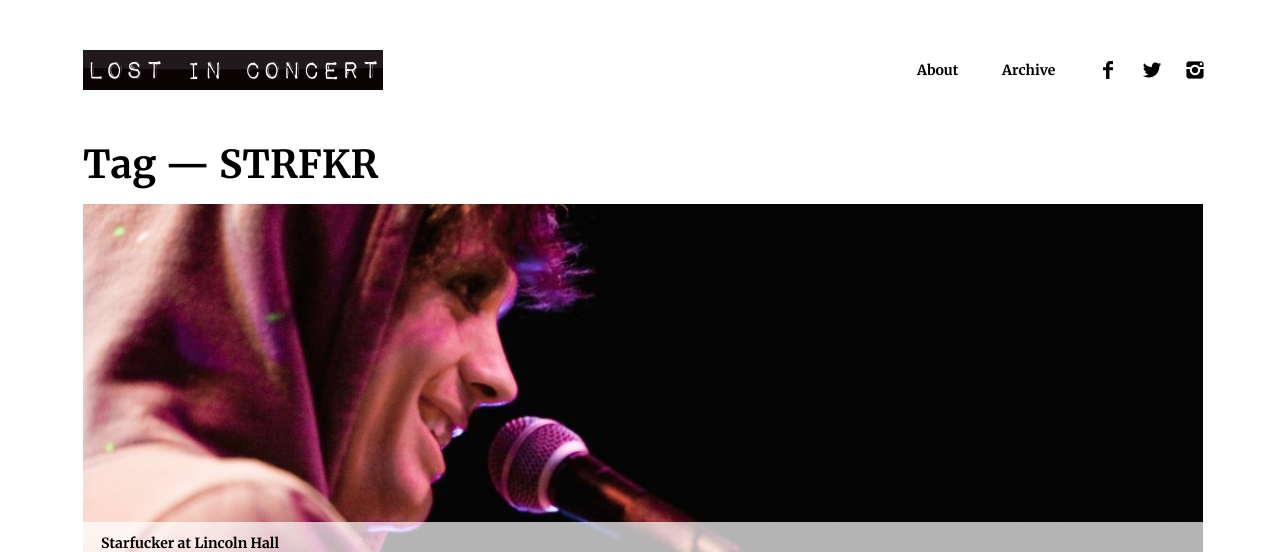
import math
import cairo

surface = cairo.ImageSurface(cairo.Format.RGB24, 1286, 552)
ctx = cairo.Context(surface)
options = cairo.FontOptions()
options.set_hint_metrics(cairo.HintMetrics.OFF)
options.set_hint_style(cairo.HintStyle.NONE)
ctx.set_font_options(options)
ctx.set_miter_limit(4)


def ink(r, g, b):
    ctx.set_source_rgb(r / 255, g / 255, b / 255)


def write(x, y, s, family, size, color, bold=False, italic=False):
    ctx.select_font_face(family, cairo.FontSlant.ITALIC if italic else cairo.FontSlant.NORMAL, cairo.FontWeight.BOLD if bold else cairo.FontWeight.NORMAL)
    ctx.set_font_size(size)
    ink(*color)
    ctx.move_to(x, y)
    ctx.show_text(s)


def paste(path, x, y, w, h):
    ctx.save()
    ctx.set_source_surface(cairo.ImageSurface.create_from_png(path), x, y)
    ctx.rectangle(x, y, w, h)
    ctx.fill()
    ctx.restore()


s1 = dict(family="Merriweather", size=14, color=(0, 0, 0), bold=True)
s2 = dict(family="Merriweather", size=38.5, color=(0, 0, 0), bold=True)

ink(255, 255, 255)
ctx.paint()
paste("pic1.png", 83, 50, 300, 40)
write(917, 75, "About", **s1)
write(1002, 75, "Archive", **s1)
paste("pic2.png", 1103, 61, 10, 18)
paste("pic3.png", 1143, 62, 19, 16)
paste("pic4.png", 1186, 61, 18, 18)
write(83, 178, "Tag — STRFKR", **s2)
paste("pic5.png", 83, 204, 1120, 348)
ctx.set_source_rgba(1, 1, 1, 0.7)
ctx.rectangle(83, 522, 1120, 30)
ctx.fill()
write(101, 548, "Starfucker at Lincoln Hall", **s1)
surface.write_to_png("screenshot.png")
